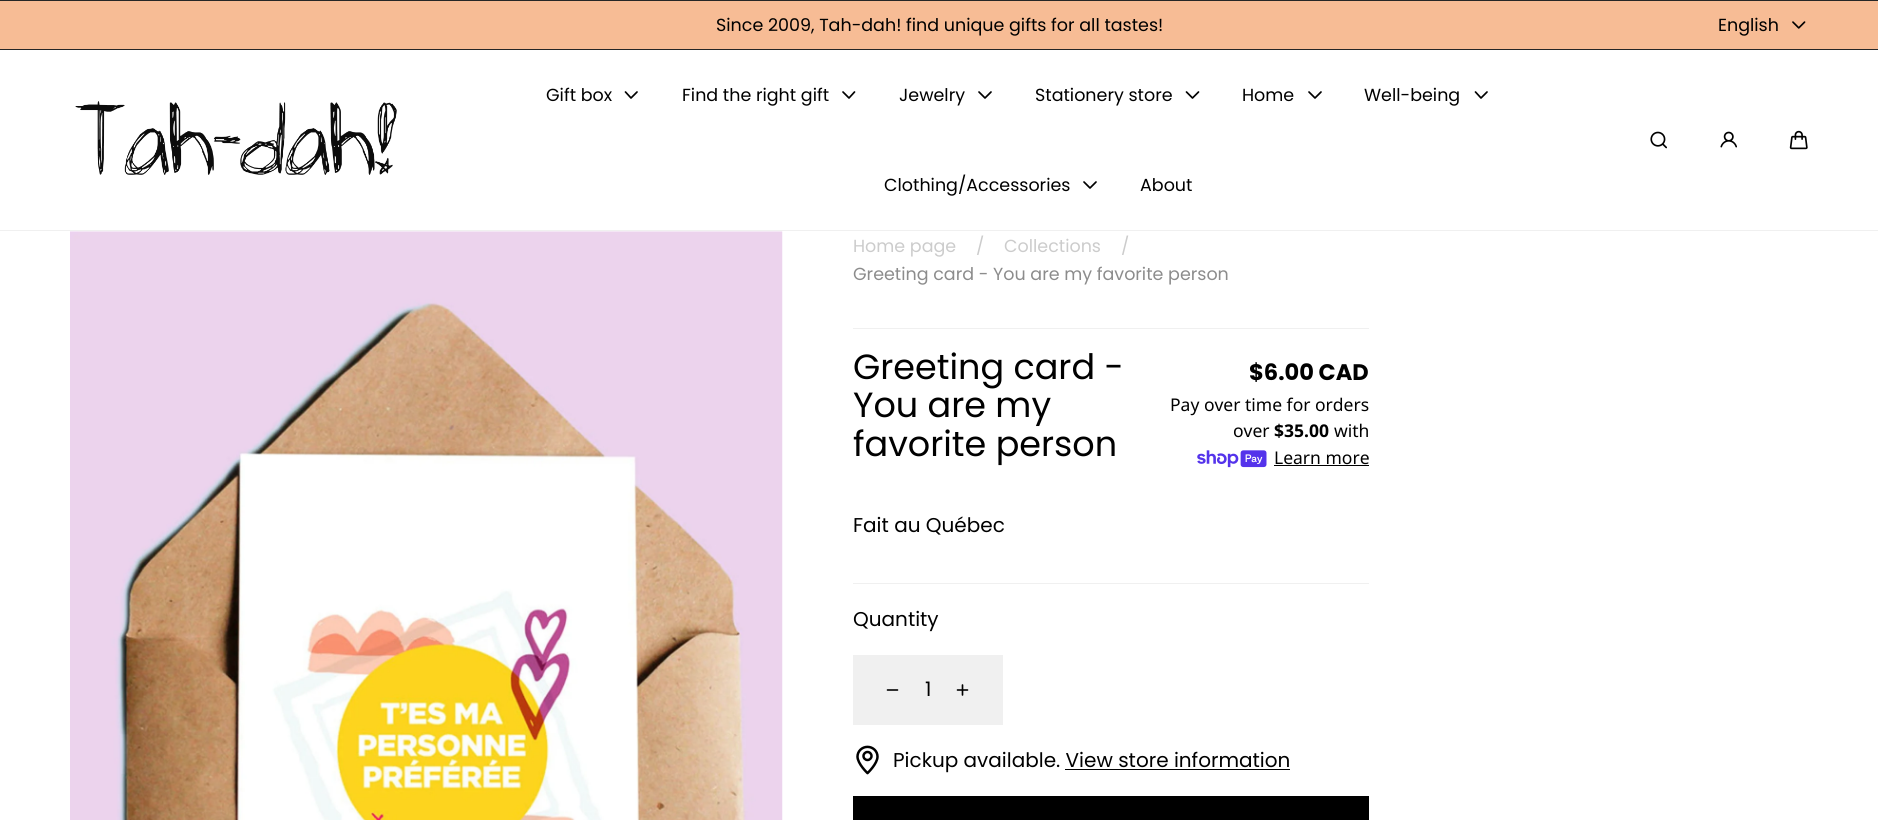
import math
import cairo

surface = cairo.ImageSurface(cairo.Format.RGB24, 1878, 820)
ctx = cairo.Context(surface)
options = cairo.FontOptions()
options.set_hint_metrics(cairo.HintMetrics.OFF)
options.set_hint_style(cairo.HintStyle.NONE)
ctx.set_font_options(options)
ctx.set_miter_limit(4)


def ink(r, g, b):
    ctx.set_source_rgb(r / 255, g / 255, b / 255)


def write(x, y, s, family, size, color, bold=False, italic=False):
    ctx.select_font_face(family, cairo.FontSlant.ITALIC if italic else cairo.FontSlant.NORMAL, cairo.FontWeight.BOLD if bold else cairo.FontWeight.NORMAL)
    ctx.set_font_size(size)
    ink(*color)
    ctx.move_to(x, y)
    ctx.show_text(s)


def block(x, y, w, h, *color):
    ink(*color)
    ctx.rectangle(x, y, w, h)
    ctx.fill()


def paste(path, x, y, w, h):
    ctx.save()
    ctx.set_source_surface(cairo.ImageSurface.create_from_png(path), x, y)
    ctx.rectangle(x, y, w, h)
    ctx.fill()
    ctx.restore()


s1 = dict(family="Poppins", size=17.5, color=(0, 0, 0))
s2 = dict(family="Poppins", size=17.5, color=(204, 204, 204))
s3 = dict(family="Poppins", size=17.5, color=(140, 140, 140))
s4 = dict(family="Poppins", size=35, color=(0, 0, 0))
s5 = dict(family="Poppins", size=22.5, color=(0, 0, 0), bold=True)
s6 = dict(family="Noto Sans", size=17.5, color=(0, 0, 0))
s7 = dict(family="Noto Sans", size=17.5, color=(0, 0, 0), bold=True)
s8 = dict(family="Poppins", size=20, color=(0, 0, 0))

ink(255, 255, 255)
ctx.paint()
block(0, 1, 1878, 48, 247, 188, 149)
block(0, 0, 1878, 1, 38, 38, 38)
block(0, 49, 1878, 1, 38, 38, 38)
write(716, 31, "Since 2009, Tah-dah! find unique gifts for all tastes!", **s1)
write(1718, 31, "English", **s1)
paste("pic1.png", 1792, 21, 14, 8)
block(0, 230, 1878, 1, 240, 240, 240)
paste("pic2.png", 75, 101, 322, 74)
write(546, 101, "Gift box", **s1)
ctx.new_path()
ctx.move_to(625.5, 92)
ctx.line_to(631, 98)
ctx.line_to(637, 92)
ctx.set_line_width(1.7)
ctx.set_line_cap(cairo.LineCap.ROUND)
ctx.set_line_join(cairo.LineJoin.ROUND)
ctx.stroke()
write(682, 101, "Find the right gift", **s1)
ctx.new_path()
ctx.move_to(843, 92)
ctx.line_to(849, 98)
ctx.line_to(854.5, 92)
ctx.stroke()
write(899, 101, "Jewelry", **s1)
ctx.new_path()
ctx.move_to(979, 92)
ctx.line_to(985, 98)
ctx.line_to(991, 92)
ctx.stroke()
write(1035, 101, "Stationery store", **s1)
ctx.new_path()
ctx.move_to(1186.5, 92)
ctx.line_to(1192.5, 98)
ctx.line_to(1198.5, 92)
ctx.stroke()
write(1242, 101, "Home", **s1)
ctx.new_path()
ctx.move_to(1309, 92)
ctx.line_to(1315, 98)
ctx.line_to(1321, 92)
ctx.stroke()
write(1364, 101, "Well-being", **s1)
ctx.new_path()
ctx.move_to(1475.5, 92)
ctx.line_to(1481, 98)
ctx.line_to(1487, 92)
ctx.stroke()
write(884, 191, "Clothing/Accessories", **s1)
ctx.new_path()
ctx.move_to(1084, 182)
ctx.line_to(1090, 188)
ctx.line_to(1096, 182)
ctx.stroke()
write(1140, 191, "About", **s1)
paste("pic3.png", 1650, 131, 17, 18)
paste("pic4.png", 1720, 131, 17, 17)
paste("pic5.png", 1789, 130, 19, 20)
paste("pic6.png", 70, 231, 713, 589)
write(853, 252, "Home page", **s2)
write(976, 252, "/", **s2)
write(1004, 252, "Collections", **s2)
write(1121, 252, "/", **s2)
write(853, 280, "Greeting card - You are my favorite person", **s3)
block(853, 328, 516, 1, 240, 240, 240)
write(853, 379, "Greeting card -", **s4)
write(853, 417, "You are my", **s4)
write(853, 456, "favorite person", **s4)
write(1249, 380, "$6.00 CAD", **s5)
write(1170, 411, "Pay over time for orders", **s6)
write(1233, 437, "over", **s6)
write(1274, 437, "$35.00", **s7)
write(1334, 437, "with", **s6)
paste("pic7.png", 1197, 450, 70, 18)
write(1274, 464, "Learn more", **s6)
block(1274, 465, 95, 1, 0, 0, 0)
write(853, 532, "Fait au Québec", **s8)
block(853, 583, 516, 1, 240, 240, 240)
write(853, 626, "Quantity", **s8)
block(853, 655, 150, 70, 240, 240, 240)
paste("pic8.png", 886, 689, 13, 2)
write(925, 696, "1", **s8)
paste("pic9.png", 956, 684, 13, 12)
paste("pic10.png", 856, 745, 23, 30)
write(893, 767, "Pickup available. View store information", **s8)
block(1065, 769, 225, 1, 0, 0, 0)
block(853, 796, 516, 24, 0, 0, 0)
surface.write_to_png("screenshot.png")
